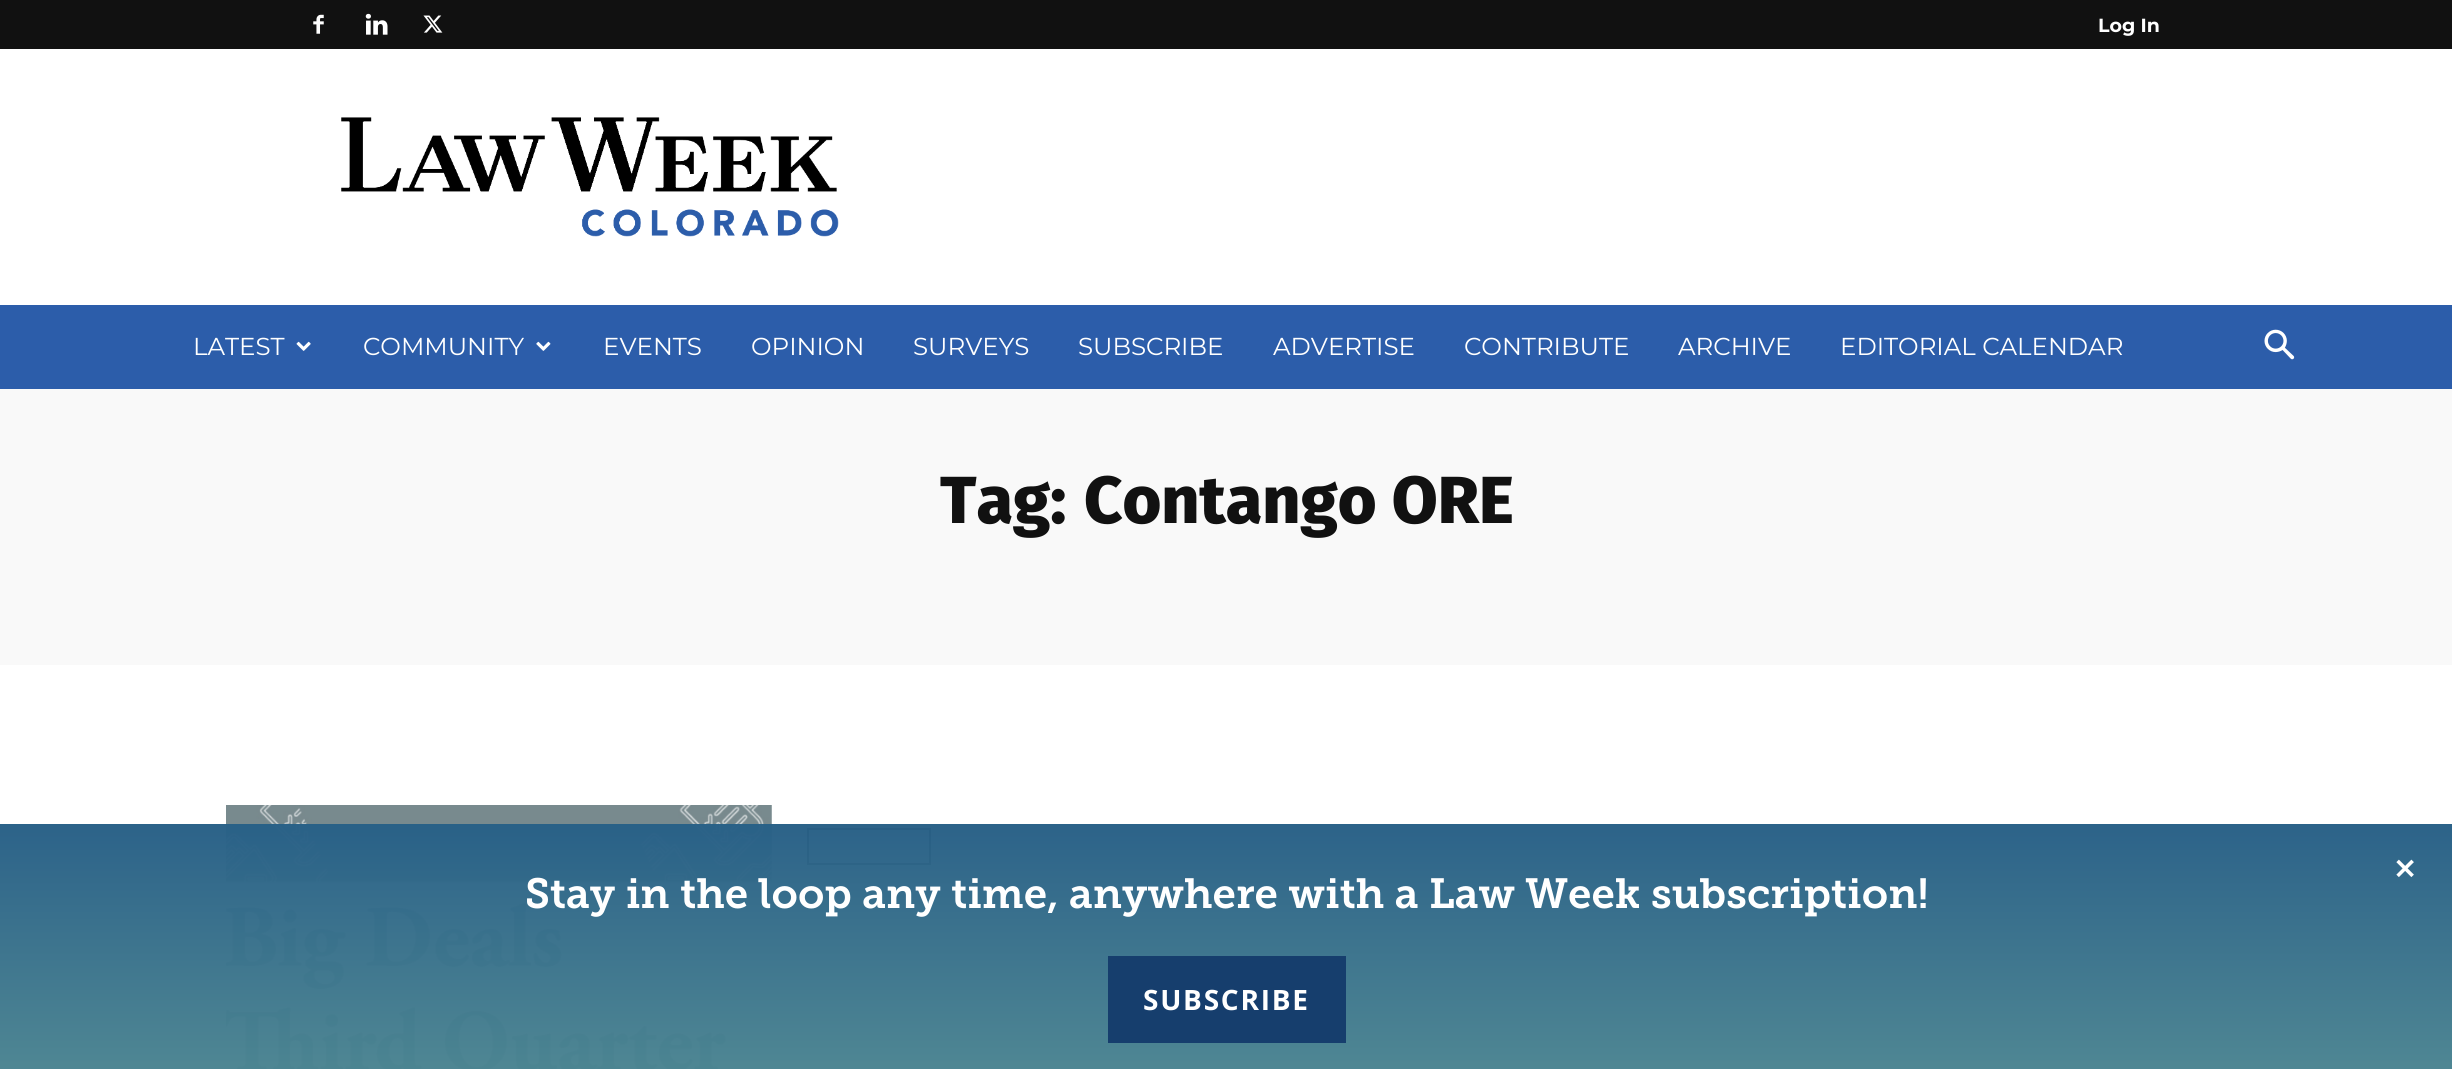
import math
import cairo

surface = cairo.ImageSurface(cairo.Format.RGB24, 2452, 1069)
ctx = cairo.Context(surface)
options = cairo.FontOptions()
options.set_hint_metrics(cairo.HintMetrics.OFF)
options.set_hint_style(cairo.HintStyle.NONE)
ctx.set_font_options(options)
ctx.set_miter_limit(4)


def ink(r, g, b):
    ctx.set_source_rgb(r / 255, g / 255, b / 255)


def write(x, y, s, family, size, color, bold=False, italic=False):
    ctx.select_font_face(family, cairo.FontSlant.ITALIC if italic else cairo.FontSlant.NORMAL, cairo.FontWeight.BOLD if bold else cairo.FontWeight.NORMAL)
    ctx.set_font_size(size)
    ink(*color)
    ctx.move_to(x, y)
    ctx.show_text(s)


def write_spaced(x, y, s, letter, word):
    ctx.move_to(x, y)
    for ch in s:
        ctx.show_text(ch)
        ctx.rel_move_to(letter + word * (ch == ' '), 0)


def block(x, y, w, h, *color):
    ink(*color)
    ctx.rectangle(x, y, w, h)
    ctx.fill()


def paste(path, x, y, w, h):
    ctx.save()
    ctx.set_source_surface(cairo.ImageSurface.create_from_png(path), x, y)
    ctx.rectangle(x, y, w, h)
    ctx.fill()
    ctx.restore()


s1 = dict(family="Montserrat", size=19, color=(255, 255, 255), bold=True)
s2 = dict(family="Montserrat", size=24.5, color=(255, 255, 255))
s3 = dict(family="Fira Sans ExtraBold", size=66.5, color=(17, 17, 17))
s4 = dict(family="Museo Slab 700 SemiBold", size=42, color=(255, 255, 255))

ink(255, 255, 255)
ctx.paint()
block(0, 824, 2452, 245, 25, 25, 25)
block(0, 0, 2452, 49, 17, 17, 17)
paste("pic1.png", 313, 14, 11, 20)
paste("pic2.png", 365, 13, 23, 22)
paste("pic3.png", 423, 15, 20, 18)
write(2098, 32, "Log In", **s1)
paste("pic4.png", 341, 117, 498, 120)
block(0, 305, 2452, 84, 44, 93, 170)
write(193, 355, "LATEST", **s2)
paste("pic5.png", 296, 341, 15, 10)
write(363, 355, "COMMUNITY", **s2)
paste("pic6.png", 536, 341, 15, 10)
write(603, 355, "EVENTS", **s2)
write(751, 355, "OPINION", **s2)
write(913, 355, "SURVEYS", **s2)
write(1078, 355, "SUBSCRIBE", **s2)
write(1273, 355, "ADVERTISE", **s2)
write(1464, 355, "CONTRIBUTE", **s2)
write(1678, 355, "ARCHIVE", **s2)
write(1840, 355, "EDITORIAL CALENDAR", **s2)
paste("pic7.png", 2264, 329, 31, 31)
block(0, 389, 2452, 276, 249, 249, 249)
write(940, 523, "Tag:", **s3)
write(1084, 523, "Contango ORE", **s3)
paste("pic8.png", 226, 805, 546, 264)
ctx.rectangle(808, 829, 122, 35)
ink(0, 0, 0)
ctx.stroke()
gradient = cairo.LinearGradient(1227, 824, 1227, 1069)
gradient.add_color_stop_rgba(0, 0.192, 0.459, 0.647, 0.8)
gradient.add_color_stop_rgba(1, 0.361, 0.635, 0.698, 0.8)
ctx.set_source(gradient)
ctx.rectangle(0, 824, 2452, 245)
ctx.fill()
ctx.select_font_face("DejaVu Sans", cairo.FontSlant.NORMAL, cairo.FontWeight.BOLD)
ctx.set_font_size(28)
ink(255, 255, 255)
write_spaced(2393, 879, "✕", 1.75, 0)
write(525, 908, "Stay in the loop any time, anywhere with a Law Week subscription!", **s4)
block(1108, 956, 238, 87, 22, 62, 109)
ctx.select_font_face("Open Sans", cairo.FontSlant.NORMAL, cairo.FontWeight.BOLD)
ctx.set_font_size(28)
ink(255, 255, 255)
write_spaced(1143, 1010, "SUBSCRIBE", 1.75, 0)
surface.write_to_png("screenshot.png")
